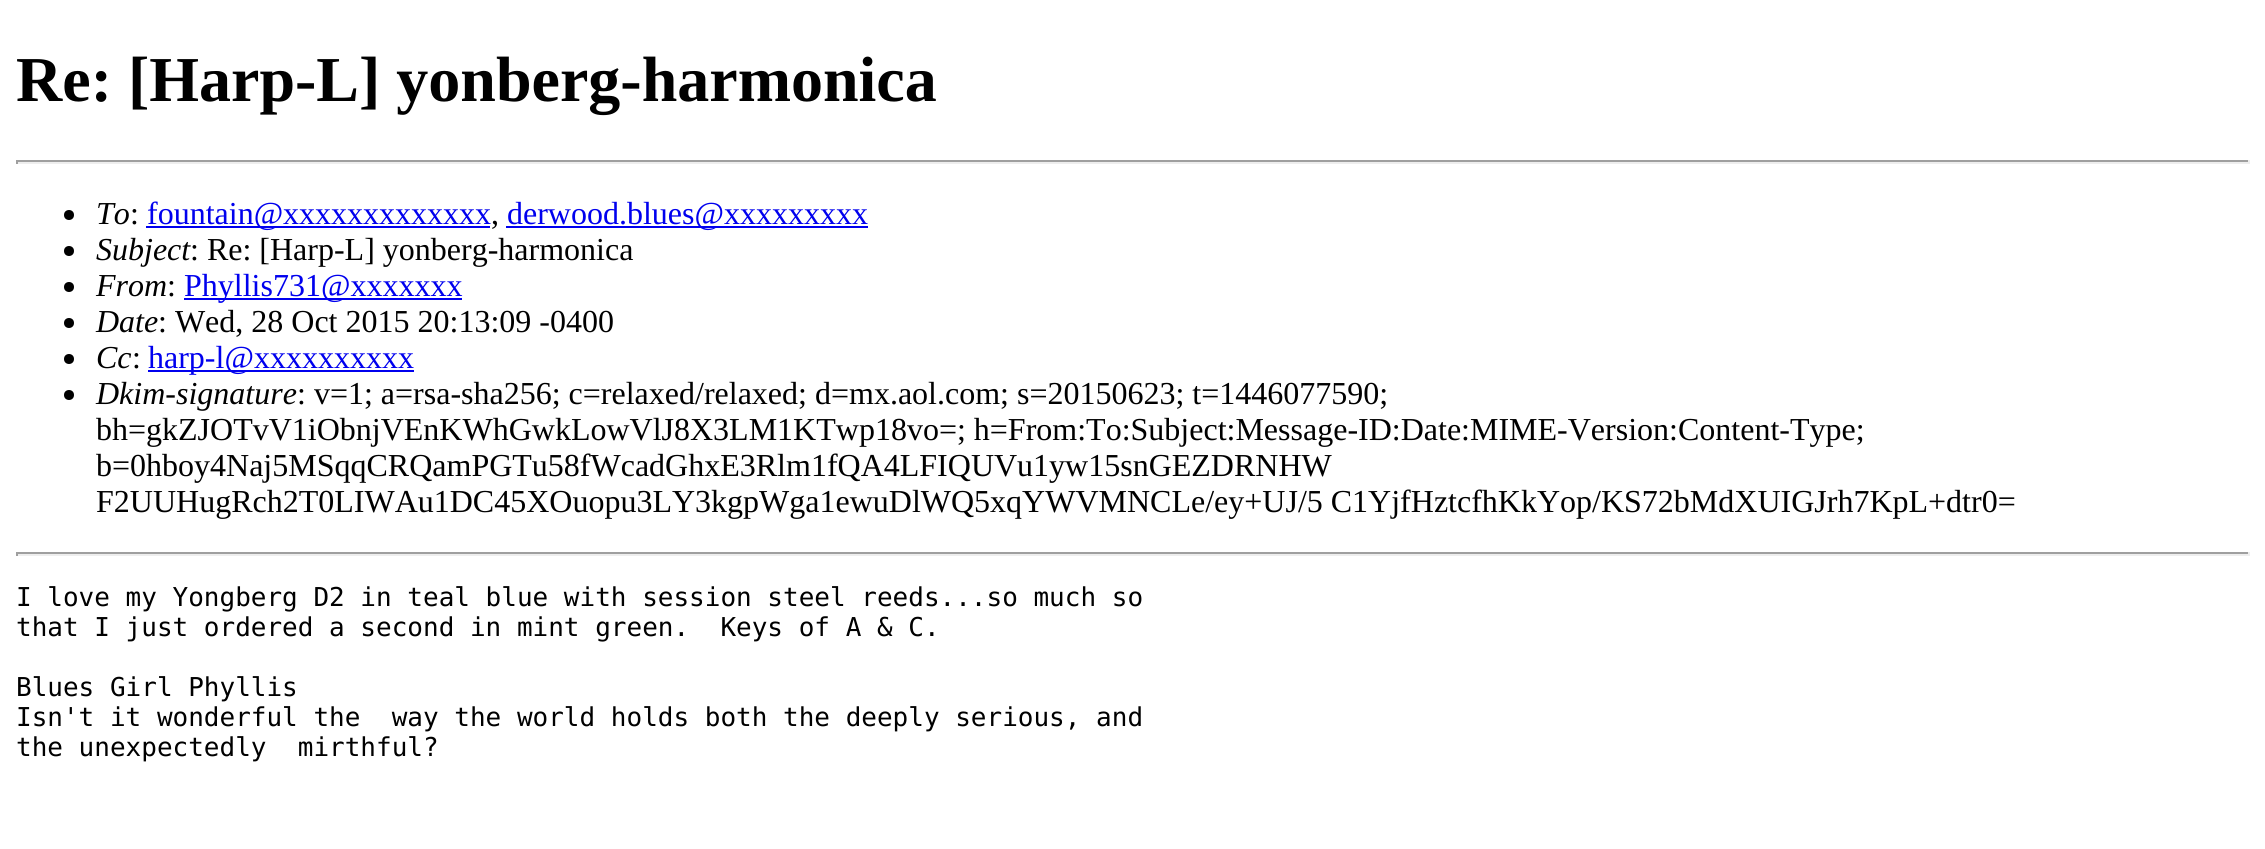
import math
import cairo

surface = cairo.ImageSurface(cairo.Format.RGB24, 2265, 849)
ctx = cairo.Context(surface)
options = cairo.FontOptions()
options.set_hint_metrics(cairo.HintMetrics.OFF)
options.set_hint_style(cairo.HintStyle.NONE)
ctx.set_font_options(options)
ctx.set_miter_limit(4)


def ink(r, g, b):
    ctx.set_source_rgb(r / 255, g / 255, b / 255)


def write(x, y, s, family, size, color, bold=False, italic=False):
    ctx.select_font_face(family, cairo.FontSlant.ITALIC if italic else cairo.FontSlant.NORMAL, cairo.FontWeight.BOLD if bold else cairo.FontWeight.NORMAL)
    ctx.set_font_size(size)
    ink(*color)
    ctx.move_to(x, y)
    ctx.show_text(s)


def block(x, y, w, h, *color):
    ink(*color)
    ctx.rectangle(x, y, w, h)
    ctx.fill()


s1 = dict(family="Liberation Serif", size=64, color=(0, 0, 0), bold=True)
s2 = dict(family="Liberation Serif", size=32, color=(0, 0, 0), italic=True)
s3 = dict(family="Liberation Serif", size=32, color=(0, 0, 0))
s4 = dict(family="Liberation Serif", size=32, color=(0, 0, 238))
s5 = dict(family="DejaVu Sans Mono", size=26, color=(0, 0, 0))

ink(255, 255, 255)
ctx.paint()
write(16, 101, "Re: [Harp-L] yonberg-harmonica", **s1)
block(16, 160, 2234, 2, 159, 159, 159)
block(2248, 160, 2, 4, 238, 238, 238)
block(16, 162, 2234, 2, 238, 238, 238)
block(16, 160, 2, 4, 159, 159, 159)
ink(0, 0, 0)
ctx.new_path()
ctx.arc(69, 215, 5, 0, 2 * math.pi)
ctx.fill()
write(96, 224, "To", **s2)
write(130, 224, ":", **s3)
block(146, 226, 344, 2, 0, 0, 238)
write(147, 224, "fountain@xxxxxxxxxxxxx", **s4)
block(506, 226, 362, 2, 0, 0, 238)
write(507, 224, "derwood.blues@xxxxxxxxx", **s4)
write(491, 224, ",", **s3)
ctx.new_path()
ctx.arc(69, 251, 5, 0, 2 * math.pi)
ctx.fill()
write(96, 260, "Subject", **s2)
write(190, 260, ": Re: [Harp-L] yonberg-harmonica", **s3)
ctx.new_path()
ctx.arc(69, 287, 5, 0, 2 * math.pi)
ctx.fill()
write(96, 296, "From", **s2)
write(167, 296, ":", **s3)
block(184, 298, 278, 2, 0, 0, 238)
write(184, 296, "Phyllis731@xxxxxxx", **s4)
ink(0, 0, 0)
ctx.new_path()
ctx.arc(69, 323, 5, 0, 2 * math.pi)
ctx.fill()
write(96, 332, "Date", **s2)
write(158, 332, ": Wed, 28 Oct 2015 20:13:09 -0400", **s3)
ctx.new_path()
ctx.arc(69, 359, 5, 0, 2 * math.pi)
ctx.fill()
write(96, 368, "Cc", **s2)
write(132, 368, ":", **s3)
block(148, 370, 266, 2, 0, 0, 238)
write(148, 368, "harp-l@xxxxxxxxxx", **s4)
ink(0, 0, 0)
ctx.new_path()
ctx.arc(69, 395, 5, 0, 2 * math.pi)
ctx.fill()
write(96, 404, "Dkim-signature", **s2)
write(297, 404, ": v=1; a=rsa-sha256; c=relaxed/relaxed; d=mx.aol.com; s=20150623; t=1446077590;", **s3)
write(96, 440, "bh=gkZJOTvV1iObnjVEnKWhGwkLowVlJ8X3LM1KTwp18vo=; h=From:To:Subject:Message-ID:Date:MIME-Version:Content-Type;", **s3)
write(96, 476, "b=0hboy4Naj5MSqqCRQamPGTu58fWcadGhxE3Rlm1fQA4LFIQUVu1yw15snGEZDRNHW", **s3)
write(96, 512, "F2UUHugRch2T0LIWAu1DC45XOuopu3LY3kgpWga1ewuDlWQ5xqYWVMNCLe/ey+UJ/5 C1YjfHztcfhKkYop/KS72bMdXUIGJrh7KpL+dtr0=", **s3)
block(16, 552, 2234, 2, 159, 159, 159)
block(2248, 552, 2, 4, 238, 238, 238)
block(16, 554, 2234, 2, 238, 238, 238)
block(16, 552, 2, 4, 159, 159, 159)
write(16, 606, "I love my Yongberg D2 in teal blue with session steel reeds...so much so", **s5)
write(16, 636, "that I just ordered a second in mint green.  Keys of A & C.", **s5)
write(16, 696, "Blues Girl Phyllis", **s5)
write(16, 726, "Isn't it wonderful the  way the world holds both the deeply serious, and", **s5)
write(16, 756, "the unexpectedly  mirthful?", **s5)
surface.write_to_png("screenshot.png")
